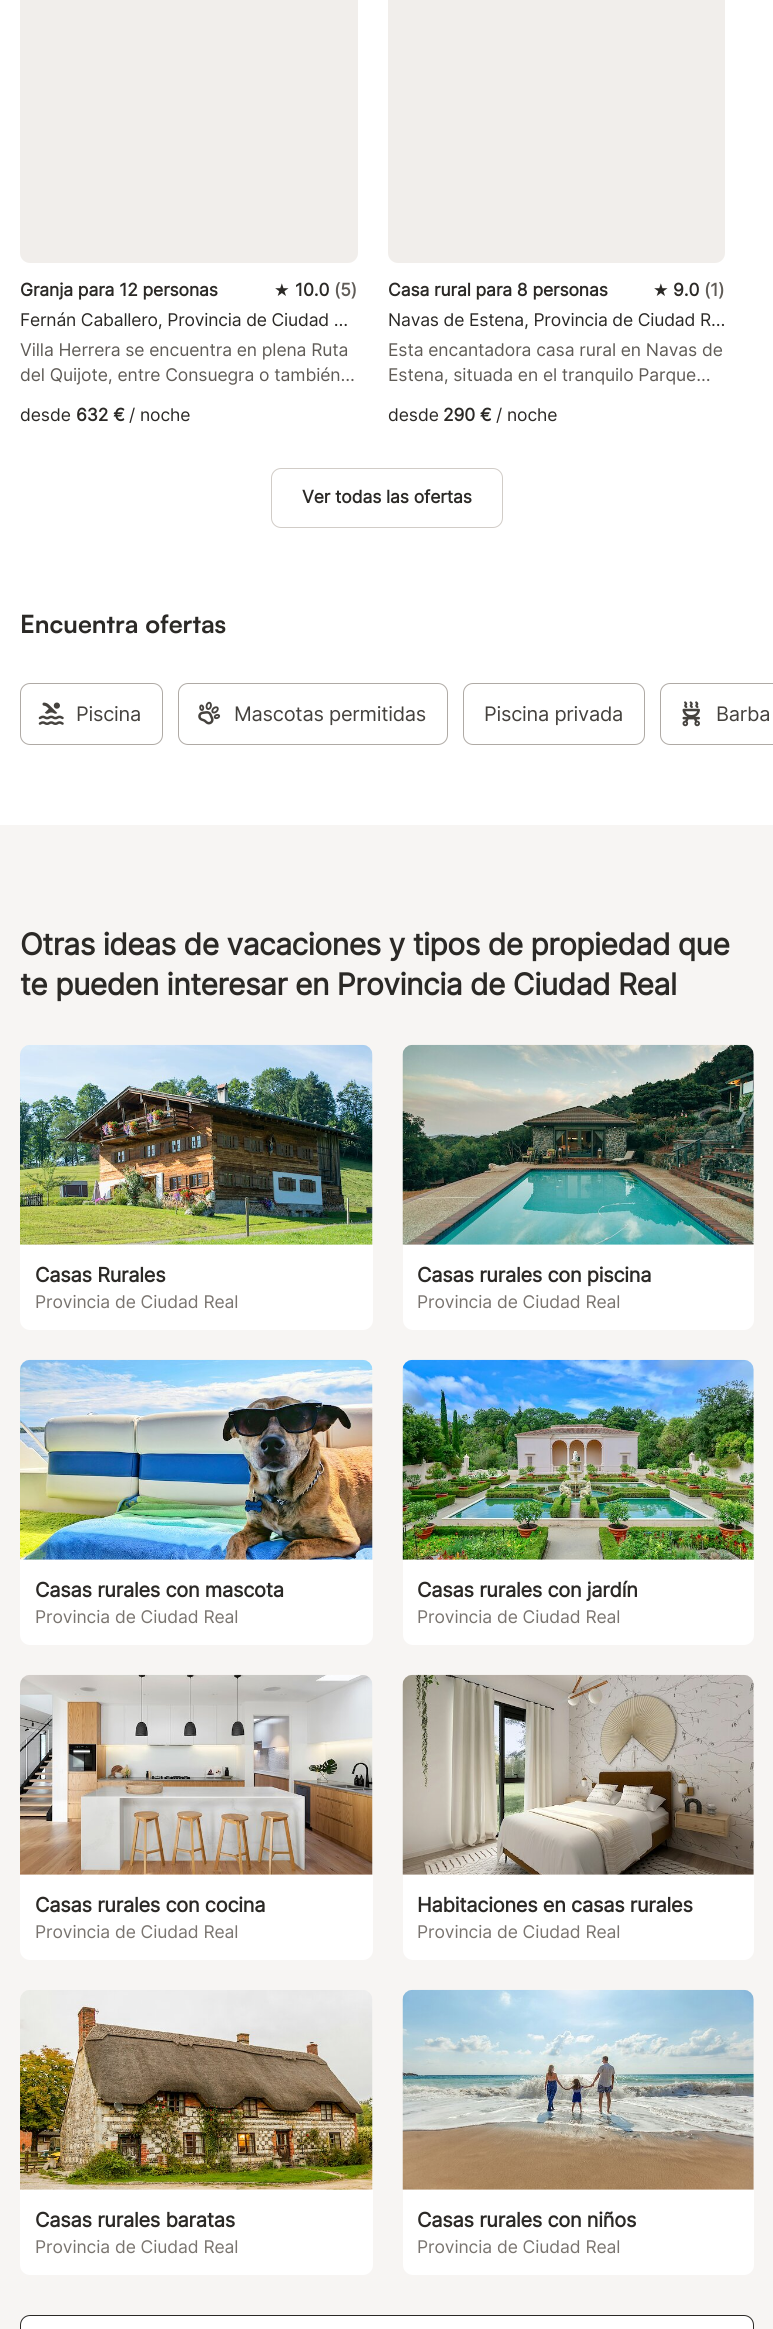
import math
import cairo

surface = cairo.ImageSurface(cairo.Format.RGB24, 773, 2329)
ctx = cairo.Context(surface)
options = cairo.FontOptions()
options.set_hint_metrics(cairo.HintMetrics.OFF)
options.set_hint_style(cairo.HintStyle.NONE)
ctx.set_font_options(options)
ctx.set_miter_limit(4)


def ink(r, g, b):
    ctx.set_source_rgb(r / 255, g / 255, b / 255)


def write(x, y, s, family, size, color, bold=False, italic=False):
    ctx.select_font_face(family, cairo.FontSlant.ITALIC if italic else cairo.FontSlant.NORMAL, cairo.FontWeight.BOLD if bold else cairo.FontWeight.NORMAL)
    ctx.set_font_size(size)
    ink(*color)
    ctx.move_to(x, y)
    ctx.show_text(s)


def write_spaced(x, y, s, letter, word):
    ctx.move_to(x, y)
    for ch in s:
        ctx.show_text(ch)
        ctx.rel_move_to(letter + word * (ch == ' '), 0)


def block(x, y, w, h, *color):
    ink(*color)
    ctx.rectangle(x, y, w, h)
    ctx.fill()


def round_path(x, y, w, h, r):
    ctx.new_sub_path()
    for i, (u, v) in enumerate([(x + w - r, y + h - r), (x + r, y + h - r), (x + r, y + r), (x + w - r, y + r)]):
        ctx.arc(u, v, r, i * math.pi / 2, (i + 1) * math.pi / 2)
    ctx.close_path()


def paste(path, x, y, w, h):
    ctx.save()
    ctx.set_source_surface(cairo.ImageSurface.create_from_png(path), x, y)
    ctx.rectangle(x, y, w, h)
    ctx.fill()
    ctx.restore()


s1 = dict(family="Satoshi", size=25, color=(43, 41, 38), bold=True)

ink(255, 255, 255)
ctx.paint()
ink(241, 238, 235)
round_path(20, -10, 338, 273, 10)
ctx.fill()
ctx.select_font_face("Inter", cairo.FontSlant.NORMAL, cairo.FontWeight.BOLD)
ctx.set_font_size(17.5)
ink(43, 41, 38)
write_spaced(20, 296, "Granja para 12 personas", -0.1, 0)
ctx.select_font_face("DejaVu Sans")
write_spaced(274, 296, "★", -0.1, 0)
ctx.select_font_face("Inter", cairo.FontSlant.NORMAL, cairo.FontWeight.BOLD)
write_spaced(295, 296, "10.0", -0.1, 0)
ink(96, 92, 87)
write_spaced(334, 296, "(5)", -0.1, 0)
ctx.select_font_face("Inter")
ink(43, 41, 38)
write_spaced(20, 326, "Fernán Caballero, Provincia de Ciudad …", -0.2, 0)
ink(96, 92, 87)
write_spaced(20, 356, "Villa Herrera se encuentra en plena Ruta", -0.1, 0)
write_spaced(20, 381, "del Quijote, entre Consuegra o también…", -0.1, 0)
ink(43, 41, 38)
write_spaced(20, 421, "desde", -0.1, 0)
ctx.select_font_face("Inter", cairo.FontSlant.NORMAL, cairo.FontWeight.BOLD)
write_spaced(76, 421, "632 €", -0.1, 0)
ctx.select_font_face("Inter")
write_spaced(129, 421, "/ noche", -0.1, 0)
ink(241, 238, 235)
round_path(388, -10, 337, 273, 10)
ctx.fill()
ctx.select_font_face("Inter", cairo.FontSlant.NORMAL, cairo.FontWeight.BOLD)
ink(43, 41, 38)
write_spaced(388, 296, "Casa rural para 8 personas", -0.1, 0)
ctx.select_font_face("DejaVu Sans")
write_spaced(653, 296, "★", -0.1, 0)
ctx.select_font_face("Inter", cairo.FontSlant.NORMAL, cairo.FontWeight.BOLD)
write_spaced(673, 296, "9.0", -0.1, 0)
ink(96, 92, 87)
write_spaced(704, 296, "(1)", -0.1, 0)
ctx.select_font_face("Inter")
ink(43, 41, 38)
write_spaced(388, 326, "Navas de Estena, Provincia de Ciudad R…", -0.2, 0)
ink(96, 92, 87)
write_spaced(388, 356, "Esta encantadora casa rural en Navas de", -0.1, 0)
write_spaced(388, 381, "Estena, situada en el tranquilo Parque…", -0.1, 0)
ink(43, 41, 38)
write_spaced(388, 421, "desde", -0.1, 0)
ctx.select_font_face("Inter", cairo.FontSlant.NORMAL, cairo.FontWeight.BOLD)
write_spaced(443, 421, "290 €", -0.1, 0)
ctx.select_font_face("Inter")
write_spaced(496, 421, "/ noche", -0.1, 0)
round_path(271.5, 468.5, 231, 59, 9.5)
ink(209, 204, 199)
ctx.set_line_width(1)
ctx.stroke()
ctx.select_font_face("Inter", cairo.FontSlant.NORMAL, cairo.FontWeight.BOLD)
ink(43, 41, 38)
write_spaced(302, 503, "Ver todas las ofertas", -0.1, 0)
write(20, 633, "Encuentra ofertas", **s1)
round_path(20.5, 683.5, 142, 61, 9.5)
ink(175, 170, 165)
ctx.stroke()
paste("pic1.png", 38, 702, 26, 23)
ctx.select_font_face("Inter")
ctx.set_font_size(20)
ink(69, 66, 62)
write_spaced(76, 721, "Piscina", -0.25, 0)
round_path(178.5, 683.5, 269, 61, 9.5)
ink(175, 170, 165)
ctx.stroke()
paste("pic2.png", 198, 701, 23, 24)
ink(69, 66, 62)
write_spaced(234, 721, "Mascotas permitidas", -0.25, 0)
round_path(463.5, 683.5, 181, 61, 9.5)
ink(175, 170, 165)
ctx.stroke()
ink(69, 66, 62)
write_spaced(484, 721, "Piscina privada", -0.25, 0)
round_path(660.5, 683.5, 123, 61, 9.5)
ink(175, 170, 165)
ctx.stroke()
paste("pic3.png", 682, 701, 18, 26)
ink(69, 66, 62)
write_spaced(716, 721, "Barba", -0.25, 0)
block(0, 825, 773, 1504, 247, 245, 243)
ctx.select_font_face("Inter", cairo.FontSlant.NORMAL, cairo.FontWeight.BOLD)
ctx.set_font_size(30)
ink(43, 41, 38)
write_spaced(20, 955, "Otras ideas de vacaciones y tipos de propiedad que", -0.55, 0)
write_spaced(20, 995, "te pueden interesar en Provincia de Ciudad Real", -0.55, 0)
paste("pic4.png", 20, 1044, 353, 201)
ink(255, 255, 255)
ctx.new_path()
ctx.move_to(20, 1245)
ctx.line_to(373, 1245)
ctx.line_to(373, 1320)
ctx.curve_to(373, 1325.5, 368.5, 1330, 363, 1330)
ctx.line_to(30, 1330)
ctx.curve_to(24.5, 1330, 20, 1325.5, 20, 1320)
ctx.close_path()
ctx.fill()
ctx.set_font_size(20)
ink(43, 41, 38)
write_spaced(35, 1282, "Casas Rurales", -0.25, 0)
ctx.select_font_face("Inter")
ctx.set_font_size(17.5)
ink(122, 117, 112)
write_spaced(35, 1308, "Provincia de Ciudad Real", -0.1, 0)
paste("pic5.png", 402, 1044, 352, 201)
ink(255, 255, 255)
ctx.new_path()
ctx.move_to(403, 1245)
ctx.line_to(754, 1245)
ctx.line_to(754, 1320)
ctx.curve_to(754, 1325.5, 749.5, 1330, 744, 1330)
ctx.line_to(413, 1330)
ctx.curve_to(407.5, 1330, 403, 1325.5, 403, 1320)
ctx.close_path()
ctx.fill()
ctx.select_font_face("Inter", cairo.FontSlant.NORMAL, cairo.FontWeight.BOLD)
ctx.set_font_size(20)
ink(43, 41, 38)
write_spaced(417, 1282, "Casas rurales con piscina", -0.25, 0)
ctx.select_font_face("Inter")
ctx.set_font_size(17.5)
ink(122, 117, 112)
write_spaced(417, 1308, "Provincia de Ciudad Real", -0.1, 0)
paste("pic6.png", 20, 1359, 353, 201)
ink(255, 255, 255)
ctx.new_path()
ctx.move_to(20, 1560)
ctx.line_to(373, 1560)
ctx.line_to(373, 1635)
ctx.curve_to(373, 1640.5, 368.5, 1645, 363, 1645)
ctx.line_to(30, 1645)
ctx.curve_to(24.5, 1645, 20, 1640.5, 20, 1635)
ctx.close_path()
ctx.fill()
ctx.select_font_face("Inter", cairo.FontSlant.NORMAL, cairo.FontWeight.BOLD)
ctx.set_font_size(20)
ink(43, 41, 38)
write_spaced(35, 1597, "Casas rurales con mascota", -0.25, 0)
ctx.select_font_face("Inter")
ctx.set_font_size(17.5)
ink(122, 117, 112)
write_spaced(35, 1623, "Provincia de Ciudad Real", -0.1, 0)
paste("pic7.png", 402, 1359, 352, 201)
ink(255, 255, 255)
ctx.new_path()
ctx.move_to(403, 1560)
ctx.line_to(754, 1560)
ctx.line_to(754, 1635)
ctx.curve_to(754, 1640.5, 749.5, 1645, 744, 1645)
ctx.line_to(413, 1645)
ctx.curve_to(407.5, 1645, 403, 1640.5, 403, 1635)
ctx.close_path()
ctx.fill()
ctx.select_font_face("Inter", cairo.FontSlant.NORMAL, cairo.FontWeight.BOLD)
ctx.set_font_size(20)
ink(43, 41, 38)
write_spaced(417, 1597, "Casas rurales con jardín", -0.25, 0)
ctx.select_font_face("Inter")
ctx.set_font_size(17.5)
ink(122, 117, 112)
write_spaced(417, 1623, "Provincia de Ciudad Real", -0.1, 0)
paste("pic8.png", 20, 1674, 353, 201)
ink(255, 255, 255)
ctx.new_path()
ctx.move_to(20, 1875)
ctx.line_to(373, 1875)
ctx.line_to(373, 1950)
ctx.curve_to(373, 1955.5, 368.5, 1960, 363, 1960)
ctx.line_to(30, 1960)
ctx.curve_to(24.5, 1960, 20, 1955.5, 20, 1950)
ctx.close_path()
ctx.fill()
ctx.select_font_face("Inter", cairo.FontSlant.NORMAL, cairo.FontWeight.BOLD)
ctx.set_font_size(20)
ink(43, 41, 38)
write_spaced(35, 1912, "Casas rurales con cocina", -0.25, 0)
ctx.select_font_face("Inter")
ctx.set_font_size(17.5)
ink(122, 117, 112)
write_spaced(35, 1938, "Provincia de Ciudad Real", -0.1, 0)
paste("pic9.png", 402, 1674, 352, 201)
ink(255, 255, 255)
ctx.new_path()
ctx.move_to(403, 1875)
ctx.line_to(754, 1875)
ctx.line_to(754, 1950)
ctx.curve_to(754, 1955.5, 749.5, 1960, 744, 1960)
ctx.line_to(413, 1960)
ctx.curve_to(407.5, 1960, 403, 1955.5, 403, 1950)
ctx.close_path()
ctx.fill()
ctx.select_font_face("Inter", cairo.FontSlant.NORMAL, cairo.FontWeight.BOLD)
ctx.set_font_size(20)
ink(43, 41, 38)
write_spaced(417, 1912, "Habitaciones en casas rurales", -0.25, 0)
ctx.select_font_face("Inter")
ctx.set_font_size(17.5)
ink(122, 117, 112)
write_spaced(417, 1938, "Provincia de Ciudad Real", -0.1, 0)
paste("pic10.png", 20, 1990, 353, 200)
ink(255, 255, 255)
ctx.new_path()
ctx.move_to(20, 2190)
ctx.line_to(373, 2190)
ctx.line_to(373, 2265)
ctx.curve_to(373, 2270.5, 368.5, 2275, 363, 2275)
ctx.line_to(30, 2275)
ctx.curve_to(24.5, 2275, 20, 2270.5, 20, 2265)
ctx.close_path()
ctx.fill()
ctx.select_font_face("Inter", cairo.FontSlant.NORMAL, cairo.FontWeight.BOLD)
ctx.set_font_size(20)
ink(43, 41, 38)
write_spaced(35, 2227, "Casas rurales baratas", -0.25, 0)
ctx.select_font_face("Inter")
ctx.set_font_size(17.5)
ink(122, 117, 112)
write_spaced(35, 2253, "Provincia de Ciudad Real", -0.1, 0)
paste("pic11.png", 402, 1989, 352, 201)
ink(255, 255, 255)
ctx.new_path()
ctx.move_to(403, 2190)
ctx.line_to(754, 2190)
ctx.line_to(754, 2265)
ctx.curve_to(754, 2270.5, 749.5, 2275, 744, 2275)
ctx.line_to(413, 2275)
ctx.curve_to(407.5, 2275, 403, 2270.5, 403, 2265)
ctx.close_path()
ctx.fill()
ctx.select_font_face("Inter", cairo.FontSlant.NORMAL, cairo.FontWeight.BOLD)
ctx.set_font_size(20)
ink(43, 41, 38)
write_spaced(417, 2227, "Casas rurales con niños", -0.25, 0)
ctx.select_font_face("Inter")
ctx.set_font_size(17.5)
ink(122, 117, 112)
write_spaced(417, 2253, "Provincia de Ciudad Real", -0.1, 0)
ink(255, 255, 255)
round_path(20.5, 2315.5, 733, 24, 9.5)
ctx.fill_preserve()
ink(43, 41, 38)
ctx.stroke()
surface.write_to_png("screenshot.png")
